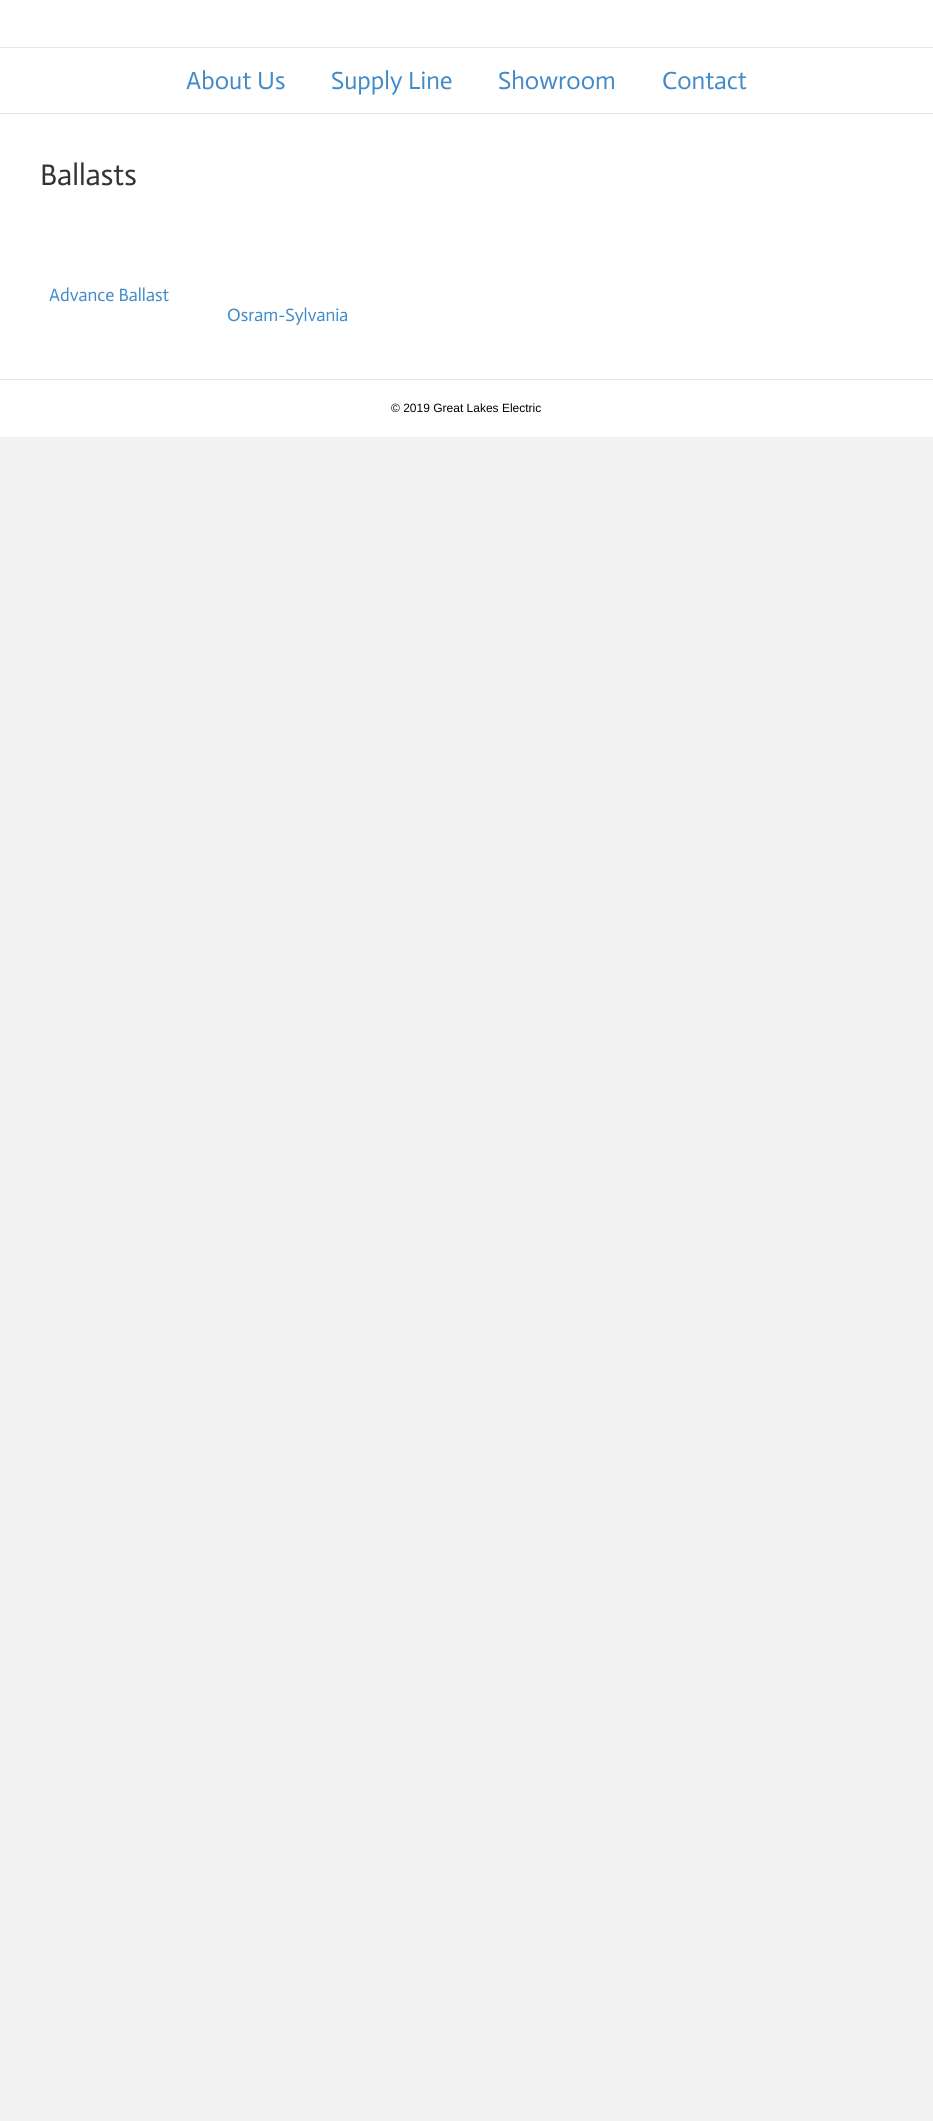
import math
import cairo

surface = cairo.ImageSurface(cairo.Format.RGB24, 933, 2121)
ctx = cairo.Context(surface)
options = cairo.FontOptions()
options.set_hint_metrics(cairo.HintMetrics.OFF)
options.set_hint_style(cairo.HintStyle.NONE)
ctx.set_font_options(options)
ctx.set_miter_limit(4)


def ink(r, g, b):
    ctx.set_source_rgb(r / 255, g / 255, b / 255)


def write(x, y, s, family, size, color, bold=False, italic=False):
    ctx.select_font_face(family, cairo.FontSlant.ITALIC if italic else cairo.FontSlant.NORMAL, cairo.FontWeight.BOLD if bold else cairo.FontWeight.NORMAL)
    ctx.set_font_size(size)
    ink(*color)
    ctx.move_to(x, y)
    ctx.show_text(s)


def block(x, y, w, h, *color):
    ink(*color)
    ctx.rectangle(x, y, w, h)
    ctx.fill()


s1 = dict(family="Actor", size=25, color=(66, 139, 202))
s2 = dict(family="Actor", size=30, color=(51, 51, 51))
s3 = dict(family="Actor", size=18, color=(66, 139, 202))
s4 = dict(family="Liberation Sans", size=12, color=(0, 0, 0))

ink(242, 242, 242)
ctx.paint()
block(0, 0, 933, 113, 255, 255, 255)
block(0, 47, 933, 1, 230, 230, 230)
block(0, 113, 933, 1, 230, 230, 230)
write(186, 89, "About Us", **s1)
write(331, 89, "Supply Line", **s1)
write(498, 89, "Showroom", **s1)
write(662, 89, "Contact", **s1)
block(0, 114, 933, 265, 255, 255, 255)
write(40, 185, "Ballasts", **s2)
write(49, 301, "Advance Ballast", **s3)
write(227, 321, "Osram-Sylvania", **s3)
block(0, 380, 933, 57, 255, 255, 255)
block(0, 379, 933, 1, 230, 230, 230)
write(391, 412, "© 2019 Great Lakes Electric", **s4)
surface.write_to_png("screenshot.png")
